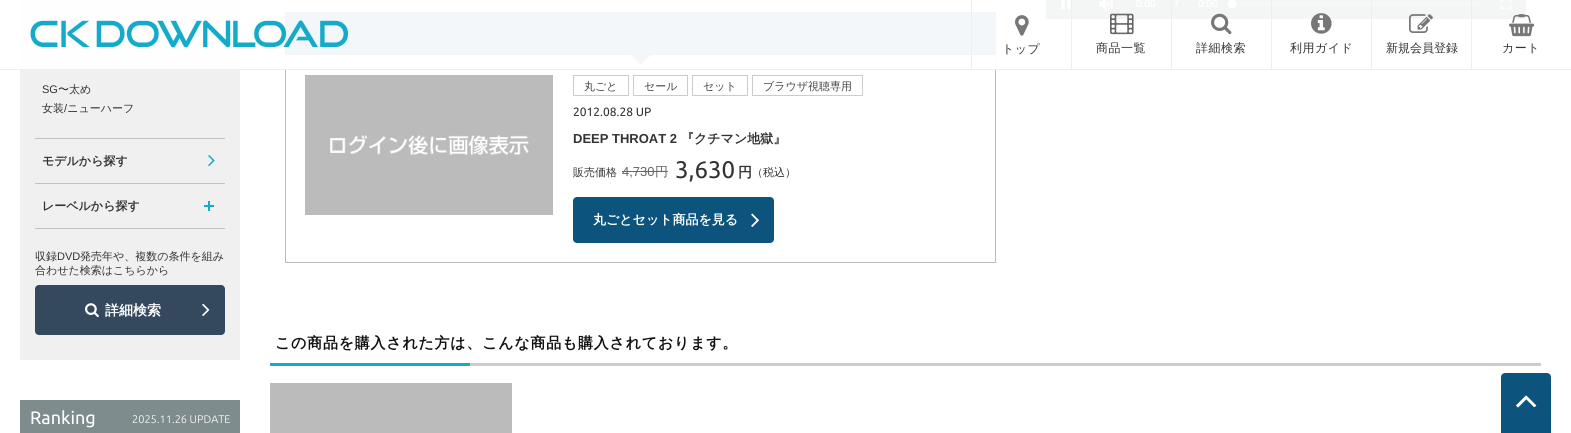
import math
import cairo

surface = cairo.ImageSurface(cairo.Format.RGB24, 1571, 433)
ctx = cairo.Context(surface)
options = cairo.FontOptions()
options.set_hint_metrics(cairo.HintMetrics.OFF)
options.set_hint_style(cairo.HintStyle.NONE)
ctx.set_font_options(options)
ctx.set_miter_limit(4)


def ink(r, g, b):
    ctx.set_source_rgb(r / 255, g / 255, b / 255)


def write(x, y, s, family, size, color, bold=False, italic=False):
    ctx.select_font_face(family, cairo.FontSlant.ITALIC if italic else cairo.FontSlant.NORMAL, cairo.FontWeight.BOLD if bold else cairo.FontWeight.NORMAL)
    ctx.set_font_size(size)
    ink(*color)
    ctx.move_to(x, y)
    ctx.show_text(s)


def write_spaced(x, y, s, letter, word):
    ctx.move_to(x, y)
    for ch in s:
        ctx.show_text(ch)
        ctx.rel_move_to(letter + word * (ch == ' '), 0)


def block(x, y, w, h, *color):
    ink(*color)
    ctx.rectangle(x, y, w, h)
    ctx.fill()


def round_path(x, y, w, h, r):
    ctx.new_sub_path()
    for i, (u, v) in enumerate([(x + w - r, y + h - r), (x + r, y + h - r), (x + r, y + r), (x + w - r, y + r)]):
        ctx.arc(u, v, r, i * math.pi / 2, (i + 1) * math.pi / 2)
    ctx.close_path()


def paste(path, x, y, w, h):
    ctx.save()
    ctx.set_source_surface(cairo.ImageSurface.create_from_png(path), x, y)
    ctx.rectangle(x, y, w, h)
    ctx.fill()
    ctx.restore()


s1 = dict(family="WenQuanYi Zen Hei Medium", size=12, color=(51, 51, 51))
s2 = dict(family="Liberation Sans", size=11, color=(51, 51, 51))
s3 = dict(family="WenQuanYi Zen Hei Medium", size=11, color=(51, 51, 51))
s4 = dict(family="WenQuanYi Zen Hei", size=12, color=(51, 51, 51), bold=True)
s5 = dict(family="WenQuanYi Zen Hei", size=14, color=(255, 255, 255), bold=True)
s6 = dict(family="Ubuntu", size=18, color=(255, 255, 255))
s7 = dict(family="Ubuntu Light", size=11, color=(255, 255, 255))
s8 = dict(family="WenQuanYi Zen Hei Medium", size=11, color=(68, 68, 68))
s9 = dict(family="Ubuntu", size=12, color=(51, 51, 51))
s10 = dict(family="Liberation Sans", size=13, color=(51, 51, 51), bold=True)
s11 = dict(family="WenQuanYi Zen Hei", size=13, color=(51, 51, 51), bold=True)
s12 = dict(family="Liberation Sans", size=13, color=(102, 102, 102))
s13 = dict(family="WenQuanYi Zen Hei Medium", size=13, color=(102, 102, 102))
s14 = dict(family="Ubuntu", size=24, color=(51, 51, 51))
s15 = dict(family="WenQuanYi Zen Hei", size=14, color=(51, 51, 51), bold=True)
s16 = dict(family="WenQuanYi Zen Hei", size=13, color=(255, 255, 255), bold=True)

ink(255, 255, 255)
ctx.paint()
block(20, 0, 220, 360, 240, 240, 240)
paste("pic11.png", 1046, 0, 480, 19)
ctx.rectangle(285.5, 12.5, 710, 250)
ink(187, 187, 187)
ctx.set_line_width(1)
ctx.stroke()
block(285, 12, 711, 43, 12, 84, 125)
ctx.new_path()
ctx.move_to(631, 55)
ctx.line_to(651, 55)
ctx.line_to(641, 65)
ctx.close_path()
ctx.fill()
ctx.set_source_rgba(1, 1, 1, 0.95)
ctx.rectangle(20, 0, 1506, 69)
ctx.fill()
block(0, 69, 1571, 1, 238, 238, 238)
paste("pic1.png", 30, 20, 319, 28)
block(971, 0, 1, 70, 238, 238, 238)
paste("pic2.png", 1015, 15, 14, 21)
ctx.select_font_face("WenQuanYi Zen Hei Medium")
ctx.set_font_size(12)
ink(51, 51, 51)
write_spaced(1002, 53, "トップ", 0.5, 0)
block(1071, 0, 1, 70, 238, 238, 238)
paste("pic3.png", 1110, 13, 24, 22)
ink(51, 51, 51)
write_spaced(1096, 52, "商品一覧", 0.5, 0)
block(1171, 0, 1, 70, 238, 238, 238)
paste("pic4.png", 1211, 13, 21, 22)
ink(51, 51, 51)
write_spaced(1196, 52, "詳細検索", 0.5, 0)
block(1271, 0, 1, 70, 238, 238, 238)
paste("pic5.png", 1311, 13, 21, 21)
ink(51, 51, 51)
write_spaced(1290, 52, "利用ガイド", 0.5, 0)
block(1371, 0, 1, 70, 238, 238, 238)
paste("pic6.png", 1409, 14, 24, 19)
write(1386, 52, "新規会員登録", **s1)
block(1471, 0, 1, 70, 238, 238, 238)
paste("pic7.png", 1509, 14, 26, 23)
ink(51, 51, 51)
write_spaced(1502, 52, "カート", 0.5, 0)
block(35, 138, 190, 1, 189, 195, 199)
write(42, 93, "SG", **s2)
write(58, 93, "〜太め", **s3)
write(42, 112, "女装 ニューハーフ", **s3)
write(64, 112, "/", **s2)
block(35, 183, 190, 1, 189, 195, 199)
write(42, 165, "モデルから探す", **s4)
paste("pic8.png", 208, 155, 7, 12)
block(35, 228, 190, 1, 189, 195, 199)
write(42, 210, "レーベルから探す", **s4)
block(204, 205, 10, 2, 20, 170, 202)
block(208, 201, 2, 10, 20, 170, 202)
write(35, 260, "収録", **s3)
write(57, 260, "DVD", **s2)
write(80, 260, "発売年や、複数の条件を組み", **s3)
write(35, 274, "合わせた検索はこちらから", **s3)
ink(52, 73, 94)
round_path(35, 285, 190, 50, 4)
ctx.fill()
paste("pic9.png", 85, 303, 14, 15)
write(105, 315, "詳細検索", **s5)
paste("pic10.png", 202, 303, 8, 13)
block(20, 400, 220, 33, 127, 140, 141)
write(30, 424, "Ranking", **s6)
write(132, 423, "2025.11.26 UPDATE", **s7)
paste("pic12.png", 305, 75, 248, 140)
ctx.rectangle(573.5, 75.5, 55, 20)
ink(204, 204, 204)
ctx.stroke()
write(584, 90, "丸ごと", **s8)
ctx.rectangle(633.5, 75.5, 54, 20)
ink(204, 204, 204)
ctx.stroke()
write(644, 90, "セール", **s8)
ctx.rectangle(692.5, 75.5, 55, 20)
ink(204, 204, 204)
ctx.stroke()
write(703, 90, "セット", **s8)
ctx.rectangle(752.5, 75.5, 110, 20)
ink(204, 204, 204)
ctx.stroke()
write(763, 90, "ブラウザ視聴専用", **s8)
write(573, 116, "2012.08.28 UP", **s9)
write(573, 143, "DEEP THROAT 2", **s10)
write(681, 143, "『クチマン地獄』", **s11)
write(573, 176, "販売価格", **s3)
write(622, 176, "4,730", **s12)
block(622, 171, 46, 1, 102, 102, 102)
write(655, 176, "円", **s13)
write(675, 178, "3,630", **s14)
write(738, 177, "円", **s15)
write(752, 176, "（税込）", **s3)
ink(12, 84, 125)
round_path(573, 197, 201, 46, 4)
ctx.fill()
write(593, 224, "丸ごとセット商品を見る", **s16)
paste("pic13.png", 751, 213, 8, 14)
block(470, 363, 1071, 3, 204, 204, 204)
ctx.set_font_size(15)
ink(17, 17, 17)
write_spaced(275, 348, "この商品を購入された方は、こんな商品も購入されております。", 0.75, 0)
block(270, 363, 200, 3, 21, 170, 202)
block(270, 383, 242, 50, 187, 187, 187)
paste("pic14.png", 1501, 373, 50, 60)
surface.write_to_png("screenshot.png")
